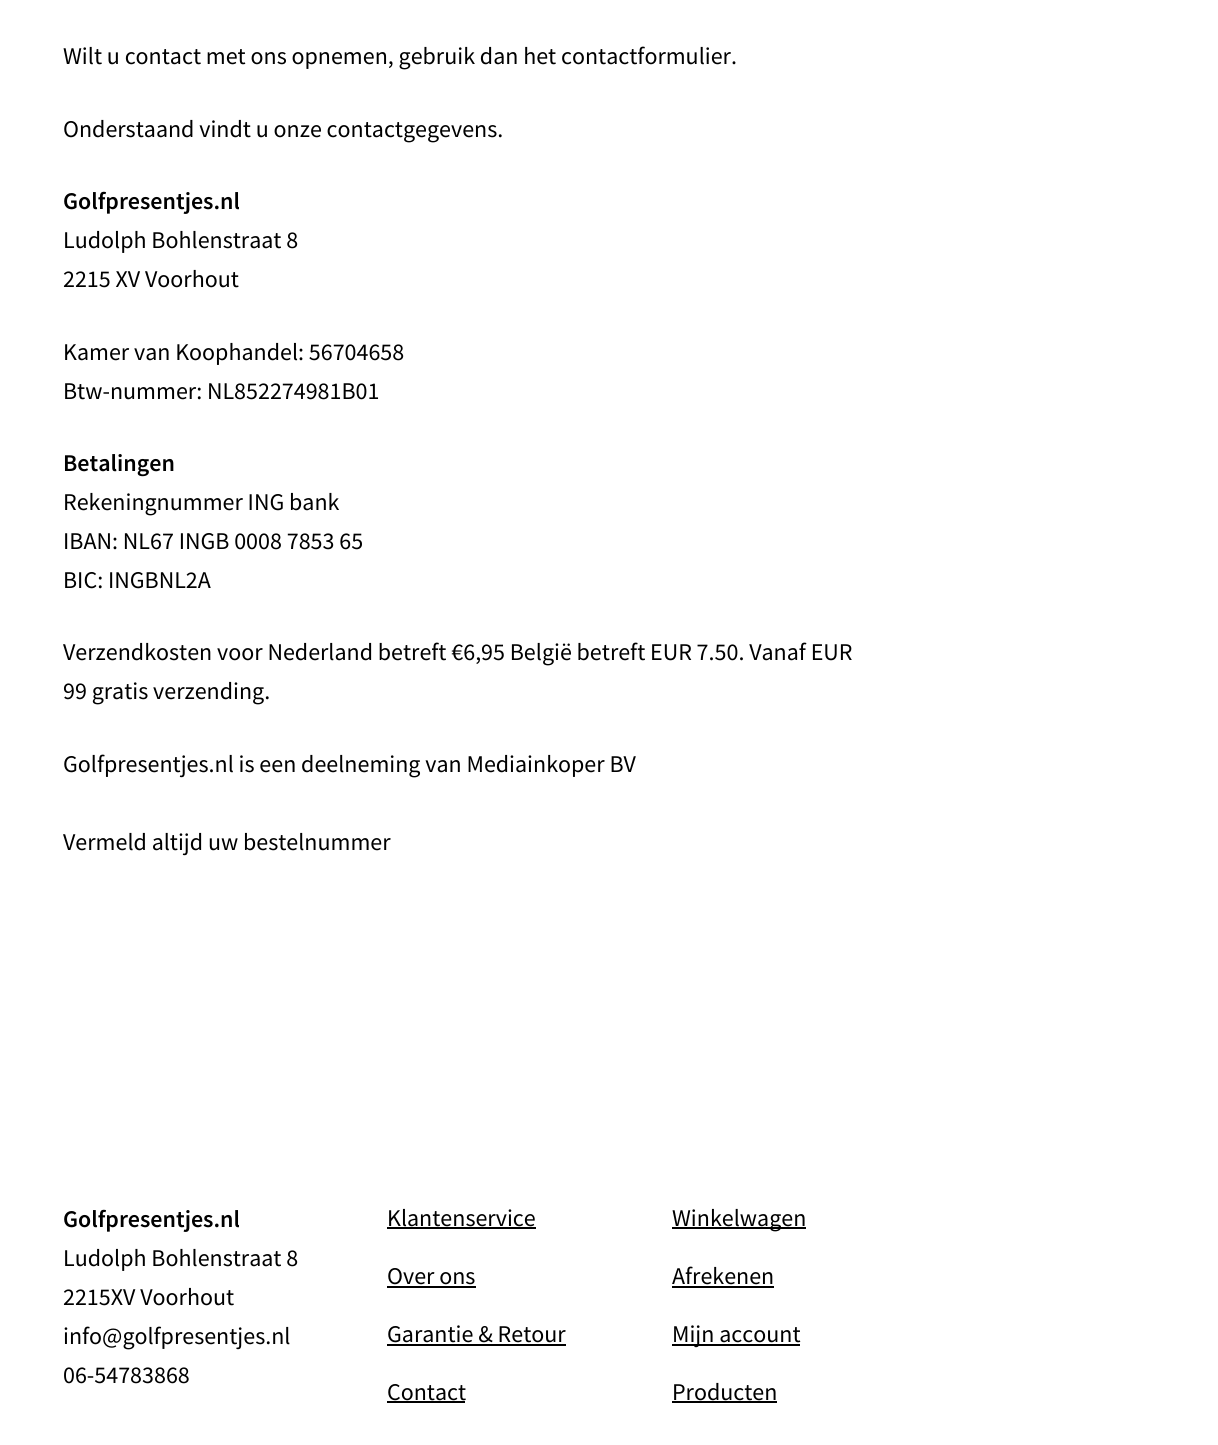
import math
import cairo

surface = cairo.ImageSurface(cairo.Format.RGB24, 1218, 1445)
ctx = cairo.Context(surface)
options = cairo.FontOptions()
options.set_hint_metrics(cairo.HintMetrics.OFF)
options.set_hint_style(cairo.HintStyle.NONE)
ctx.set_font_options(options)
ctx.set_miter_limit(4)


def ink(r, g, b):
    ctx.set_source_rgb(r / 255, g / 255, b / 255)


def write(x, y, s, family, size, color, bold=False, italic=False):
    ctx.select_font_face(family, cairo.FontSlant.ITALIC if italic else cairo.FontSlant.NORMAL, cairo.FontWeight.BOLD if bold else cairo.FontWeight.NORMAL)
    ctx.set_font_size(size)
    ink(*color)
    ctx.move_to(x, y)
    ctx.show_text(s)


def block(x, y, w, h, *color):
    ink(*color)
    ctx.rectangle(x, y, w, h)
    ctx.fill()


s1 = dict(family="Source Sans Pro", size=24, color=(0, 0, 0))
s2 = dict(family="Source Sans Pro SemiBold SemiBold", size=24, color=(0, 0, 0))

ink(255, 255, 255)
ctx.paint()
write(63, 64, "Wilt u contact met ons opnemen, gebruik dan het contactformulier.", **s1)
write(63, 137, "Onderstaand vindt u onze contactgegevens.", **s1)
write(63, 209, "Golfpresentjes.nl", **s2)
write(63, 248, "Ludolph Bohlenstraat 8", **s1)
write(63, 287, "2215 XV Voorhout", **s1)
write(63, 360, "Kamer van Koophandel: 56704658", **s1)
write(63, 399, "Btw-nummer: NL852274981B01", **s1)
write(63, 471, "Betalingen", **s2)
write(63, 510, "Rekeningnummer ING bank", **s1)
write(63, 549, "IBAN: NL67 INGB 0008 7853 65", **s1)
write(63, 588, "BIC: INGBNL2A", **s1)
write(63, 660, "Verzendkosten voor Nederland betreft €6,95 België betreft EUR 7.50. Vanaf EUR", **s1)
write(63, 699, "99 gratis verzending.", **s1)
write(63, 772, "Golfpresentjes.nl is een deelneming van Mediainkoper BV", **s1)
write(63, 850, "Vermeld altijd uw bestelnummer", **s1)
write(63, 1227, "Golfpresentjes.nl", **s2)
write(63, 1266, "Ludolph Bohlenstraat 8", **s1)
write(63, 1305, "2215XV Voorhout", **s1)
write(63, 1344, "info@golfpresentjes.nl", **s1)
write(63, 1383, "06-54783868", **s1)
write(387, 1226, "Klantenservice", **s1)
block(387, 1227, 149, 2, 0, 0, 0)
write(387, 1284, "Over ons", **s1)
block(387, 1286, 89, 2, 0, 0, 0)
write(387, 1342, "Garantie & Retour", **s1)
block(387, 1344, 179, 2, 0, 0, 0)
write(387, 1400, "Contact", **s1)
block(387, 1401, 78, 2, 0, 0, 0)
block(672, 1227, 134, 2, 0, 0, 0)
write(672, 1226, "Winkelwagen", **s1)
write(672, 1284, "Afrekenen", **s1)
block(672, 1286, 102, 2, 0, 0, 0)
block(672, 1344, 128, 2, 0, 0, 0)
write(672, 1342, "Mijn account", **s1)
write(672, 1400, "Producten", **s1)
block(672, 1401, 105, 2, 0, 0, 0)
surface.write_to_png("screenshot.png")
